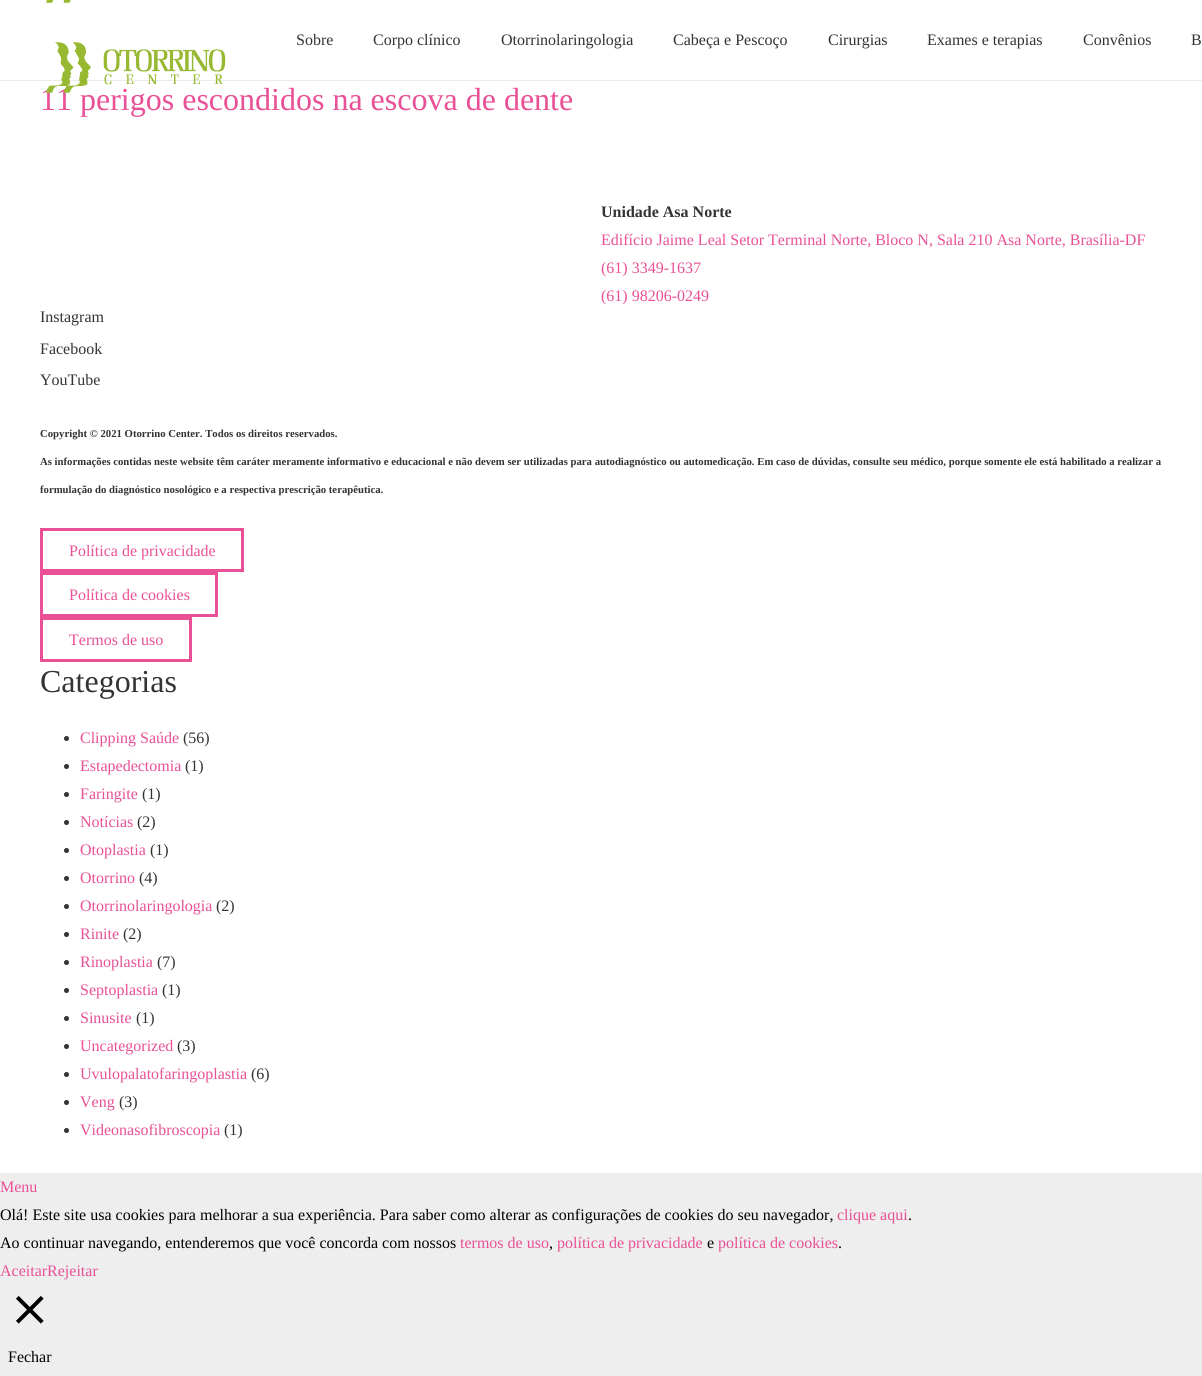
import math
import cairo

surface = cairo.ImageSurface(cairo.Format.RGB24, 1202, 1376)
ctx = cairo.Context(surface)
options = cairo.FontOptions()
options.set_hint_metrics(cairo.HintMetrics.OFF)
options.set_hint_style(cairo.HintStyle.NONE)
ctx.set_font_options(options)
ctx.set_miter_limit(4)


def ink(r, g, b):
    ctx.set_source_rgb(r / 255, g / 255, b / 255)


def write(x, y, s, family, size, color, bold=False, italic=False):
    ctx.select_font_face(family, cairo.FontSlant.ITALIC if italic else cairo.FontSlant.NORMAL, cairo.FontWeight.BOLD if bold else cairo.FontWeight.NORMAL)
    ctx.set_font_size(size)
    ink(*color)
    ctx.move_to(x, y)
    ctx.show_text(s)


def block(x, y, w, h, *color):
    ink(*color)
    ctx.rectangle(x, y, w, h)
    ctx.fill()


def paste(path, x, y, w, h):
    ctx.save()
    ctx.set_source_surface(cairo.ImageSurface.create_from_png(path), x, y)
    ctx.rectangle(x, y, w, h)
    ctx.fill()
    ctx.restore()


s1 = dict(family="Liberation Serif", size=32, color=(233, 80, 149))
s2 = dict(family="Liberation Serif", size=16, color=(51, 51, 51))
s3 = dict(family="Liberation Serif", size=16, color=(51, 51, 51), bold=True)
s4 = dict(family="Liberation Serif", size=16, color=(233, 80, 149))
s5 = dict(family="Liberation Serif", size=10.72, color=(51, 51, 51), bold=True)
s6 = dict(family="Liberation Serif", size=32, color=(51, 51, 51))
s7 = dict(family="Liberation Serif", size=16, color=(0, 0, 0))

ink(238, 238, 238)
ctx.paint()
block(0, 0, 1202, 1173, 255, 255, 255)
block(0, 80, 1202, 1, 235, 235, 235)
paste("pic1.png", 46, 0, 25, 3)
write(40, 110, "11 perigos escondidos na escova de dente", **s1)
paste("pic2.png", 46, 42, 180, 51)
write(296, 45, "Sobre", **s2)
write(373, 45, "Corpo clínico", **s2)
write(501, 45, "Otorrinolaringologia", **s2)
write(673, 45, "Cabeça e Pescoço", **s2)
write(828, 45, "Cirurgias", **s2)
write(927, 45, "Exames e terapias", **s2)
write(1083, 45, "Convênios", **s2)
write(1191, 45, "B", **s2)
write(601, 217, "Unidade Asa Norte", **s3)
write(601, 245, "Edifício Jaime Leal Setor Terminal Norte, Bloco N, Sala 210 Asa Norte, Brasília-DF", **s4)
write(601, 273, "(61) 3349-1637", **s4)
write(601, 301, "(61) 98206-0249", **s4)
write(40, 322, "Instagram", **s2)
write(40, 354, "Facebook", **s2)
write(40, 385, "YouTube", **s2)
write(40, 437, "Copyright © 2021 Otorrino Center. Todos os direitos reservados.", **s5)
write(40, 465, "As informações contidas neste website têm caráter meramente informativo e educacional e não devem ser utilizadas para autodiagnóstico ou automedicação. Em caso de dúvidas, consulte seu médico, porque somente ele está habilitado a realizar a", **s5)
write(40, 493, "formulação do diagnóstico nosológico e a respectiva prescrição terapêutica.", **s5)
ctx.rectangle(41.5, 529.5, 201, 41)
ink(233, 80, 149)
ctx.set_line_width(3)
ctx.stroke()
write(69, 556, "Política de privacidade", **s4)
ctx.rectangle(41.5, 573.5, 175, 42)
ctx.stroke()
write(69, 600, "Política de cookies", **s4)
ctx.rectangle(41.5, 618.5, 149, 42)
ctx.stroke()
write(69, 645, "Termos de uso", **s4)
write(40, 692, "Categorias", **s6)
ctx.new_path()
ctx.arc(66.5, 738.5, 2.5, 0, 2 * math.pi)
ctx.fill()
write(80, 743, "Clipping Saúde", **s4)
write(183, 743, "(56)", **s2)
ctx.new_path()
ctx.arc(66.5, 766.5, 2.5, 0, 2 * math.pi)
ctx.fill()
write(80, 771, "Estapedectomia", **s4)
write(185, 771, "(1)", **s2)
ctx.new_path()
ctx.arc(66.5, 794.5, 2.5, 0, 2 * math.pi)
ctx.fill()
write(80, 799, "Faringite", **s4)
write(142, 799, "(1)", **s2)
ctx.new_path()
ctx.arc(66.5, 822.5, 2.5, 0, 2 * math.pi)
ctx.fill()
write(80, 827, "Notícias", **s4)
write(137, 827, "(2)", **s2)
ctx.new_path()
ctx.arc(66.5, 850.5, 2.5, 0, 2 * math.pi)
ctx.fill()
write(80, 855, "Otoplastia", **s4)
write(150, 855, "(1)", **s2)
ctx.new_path()
ctx.arc(66.5, 878.5, 2.5, 0, 2 * math.pi)
ctx.fill()
write(80, 883, "Otorrino", **s4)
write(139, 883, "(4)", **s2)
ctx.new_path()
ctx.arc(66.5, 906.5, 2.5, 0, 2 * math.pi)
ctx.fill()
write(80, 911, "Otorrinolaringologia", **s4)
write(216, 911, "(2)", **s2)
ctx.new_path()
ctx.arc(66.5, 934.5, 2.5, 0, 2 * math.pi)
ctx.fill()
write(80, 939, "Rinite", **s4)
write(123, 939, "(2)", **s2)
ctx.new_path()
ctx.arc(66.5, 962.5, 2.5, 0, 2 * math.pi)
ctx.fill()
write(80, 967, "Rinoplastia", **s4)
write(157, 967, "(7)", **s2)
ctx.new_path()
ctx.arc(66.5, 990.5, 2.5, 0, 2 * math.pi)
ctx.fill()
write(80, 995, "Septoplastia", **s4)
write(162, 995, "(1)", **s2)
ctx.new_path()
ctx.arc(66.5, 1018.5, 2.5, 0, 2 * math.pi)
ctx.fill()
write(80, 1023, "Sinusite", **s4)
write(136, 1023, "(1)", **s2)
ctx.new_path()
ctx.arc(66.5, 1046.5, 2.5, 0, 2 * math.pi)
ctx.fill()
write(80, 1051, "Uncategorized", **s4)
write(177, 1051, "(3)", **s2)
ctx.new_path()
ctx.arc(66.5, 1074.5, 2.5, 0, 2 * math.pi)
ctx.fill()
write(80, 1079, "Uvulopalatofaringoplastia", **s4)
write(251, 1079, "(6)", **s2)
ctx.new_path()
ctx.arc(66.5, 1102.5, 2.5, 0, 2 * math.pi)
ctx.fill()
write(80, 1107, "Veng", **s4)
write(119, 1107, "(3)", **s2)
ctx.new_path()
ctx.arc(66.5, 1130.5, 2.5, 0, 2 * math.pi)
ctx.fill()
write(80, 1135, "Videonasofibroscopia", **s4)
write(224, 1135, "(1)", **s2)
write(0, 1192, "Menu", **s4)
write(0, 1220, "Olá! Este site usa cookies para melhorar a sua experiência. Para saber como alterar as configurações de cookies do seu navegador,", **s7)
write(837, 1220, "clique aqui", **s4)
write(908, 1220, ".", **s7)
write(0, 1248, "Ao continuar navegando, entenderemos que você concorda com nossos", **s7)
write(460, 1248, "termos de uso", **s4)
write(549, 1248, ",", **s7)
write(557, 1248, "política de privacidade", **s4)
write(707, 1248, "e", **s7)
write(718, 1248, "política de cookies", **s4)
write(838, 1248, ".", **s7)
write(0, 1276, "AceitarRejeitar", **s4)
paste("pic3.png", 16, 1296, 28, 28)
write(8, 1362, "Fechar", **s7)
surface.write_to_png("screenshot.png")
